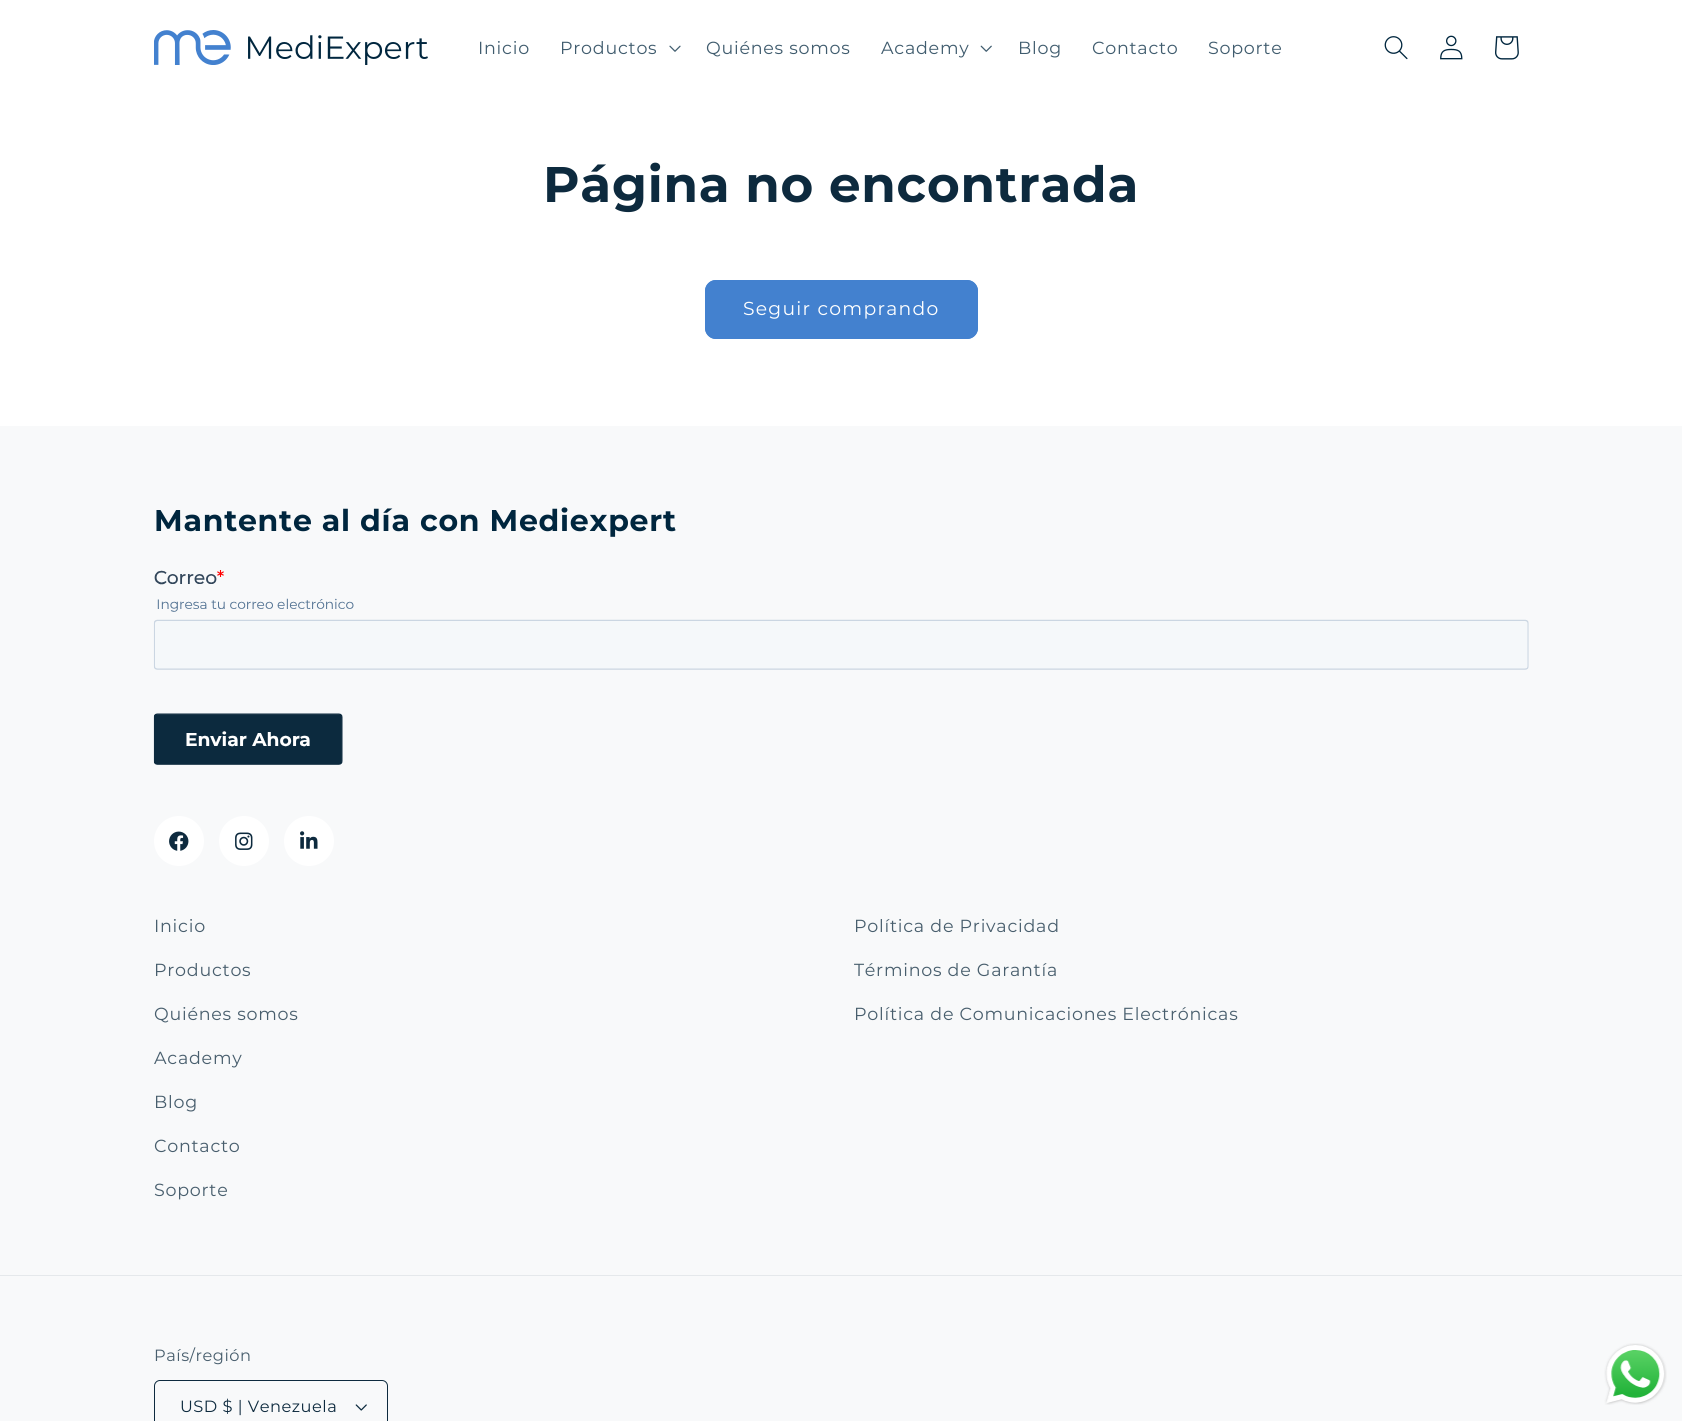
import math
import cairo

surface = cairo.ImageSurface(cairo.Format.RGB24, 1682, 1421)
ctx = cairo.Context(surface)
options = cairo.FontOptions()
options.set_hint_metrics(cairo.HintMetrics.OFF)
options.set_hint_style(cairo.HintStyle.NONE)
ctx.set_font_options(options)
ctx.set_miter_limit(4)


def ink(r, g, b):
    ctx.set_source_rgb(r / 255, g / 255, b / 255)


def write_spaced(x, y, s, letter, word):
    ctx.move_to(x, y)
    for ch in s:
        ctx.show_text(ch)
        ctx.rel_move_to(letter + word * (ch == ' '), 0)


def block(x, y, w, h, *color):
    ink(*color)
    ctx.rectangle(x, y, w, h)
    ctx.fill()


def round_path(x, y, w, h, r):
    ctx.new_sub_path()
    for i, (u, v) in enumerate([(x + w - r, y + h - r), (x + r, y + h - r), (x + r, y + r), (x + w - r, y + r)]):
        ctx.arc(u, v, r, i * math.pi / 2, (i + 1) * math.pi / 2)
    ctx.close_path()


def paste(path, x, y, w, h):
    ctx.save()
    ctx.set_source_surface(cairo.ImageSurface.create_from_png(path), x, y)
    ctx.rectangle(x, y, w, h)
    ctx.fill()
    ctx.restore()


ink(255, 255, 255)
ctx.paint()
paste("pic1.png", 154, 30, 274, 35)
ctx.select_font_face("Montserrat")
ctx.set_font_size(17.5)
ink(64, 92, 110)
write_spaced(478, 54, "Inicio", 0.75, 0)
write_spaced(560, 54, "Productos", 0.75, 0)
paste("pic2.png", 669, 45, 12, 7)
write_spaced(706, 54, "Quiénes somos", 0.75, 0)
write_spaced(881, 54, "Academy", 0.75, 0)
paste("pic3.png", 980, 45, 12, 7)
write_spaced(1018, 54, "Blog", 0.75, 0)
write_spaced(1092, 54, "Contacto", 0.75, 0)
write_spaced(1208, 54, "Soporte", 0.75, 0)
paste("pic4.png", 1384, 36, 24, 24)
paste("pic5.png", 1440, 35, 23, 25)
paste("pic6.png", 1495, 36, 24, 24)
ctx.select_font_face("Montserrat", cairo.FontSlant.NORMAL, cairo.FontWeight.BOLD)
ctx.set_font_size(50)
ink(13, 42, 62)
write_spaced(543, 202, "Página no encontrada", 0.75, 0)
ink(67, 129, 207)
round_path(705, 280, 273, 59, 11)
ctx.fill()
round_path(705.5, 280.5, 272, 58, 10.5)
ctx.set_line_width(1)
ctx.stroke()
ctx.select_font_face("Montserrat")
ctx.set_font_size(18.75)
ink(255, 255, 255)
write_spaced(743, 315, "Seguir comprando", 1.25, 0)
block(0, 426, 1682, 995, 248, 249, 250)
ctx.select_font_face("Montserrat", cairo.FontSlant.NORMAL, cairo.FontWeight.BOLD)
ctx.set_font_size(30)
ink(0, 38, 62)
write_spaced(154, 531, "Mantente al día con Mediexpert", 0.75, 0)
paste("pic7.png", 153, 570, 1376, 195)
paste("pic8.png", 154, 816, 50, 50)
paste("pic9.png", 219, 816, 50, 50)
paste("pic10.png", 284, 816, 50, 50)
ctx.select_font_face("Montserrat")
ctx.set_font_size(17.5)
ink(72, 94, 109)
write_spaced(154, 932, "Inicio", 0.75, 0)
write_spaced(154, 976, "Productos", 0.75, 0)
write_spaced(154, 1020, "Quiénes somos", 0.75, 0)
write_spaced(154, 1064, "Academy", 0.75, 0)
write_spaced(154, 1108, "Blog", 0.75, 0)
write_spaced(154, 1152, "Contacto", 0.75, 0)
write_spaced(154, 1196, "Soporte", 0.75, 0)
write_spaced(854, 932, "Política de Privacidad", 0.75, 0)
write_spaced(854, 976, "Términos de Garantía", 0.75, 0)
write_spaced(854, 1020, "Política de Comunicaciones Electrónicas", 0.75, 0)
block(0, 1275, 1682, 1, 229, 232, 235)
ctx.set_font_size(16.25)
ink(72, 94, 109)
write_spaced(154, 1361, "País/región", 0.5, 0)
paste("pic11.png", 355, 1404, 12, 7)
round_path(154.5, 1380.5, 233, 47, 5.5)
ink(13, 42, 62)
ctx.stroke()
write_spaced(180, 1412, "USD $ | Venezuela", 0.5, 0)
paste("pic12.png", 1604, 1343, 63, 62)
surface.write_to_png("screenshot.png")
